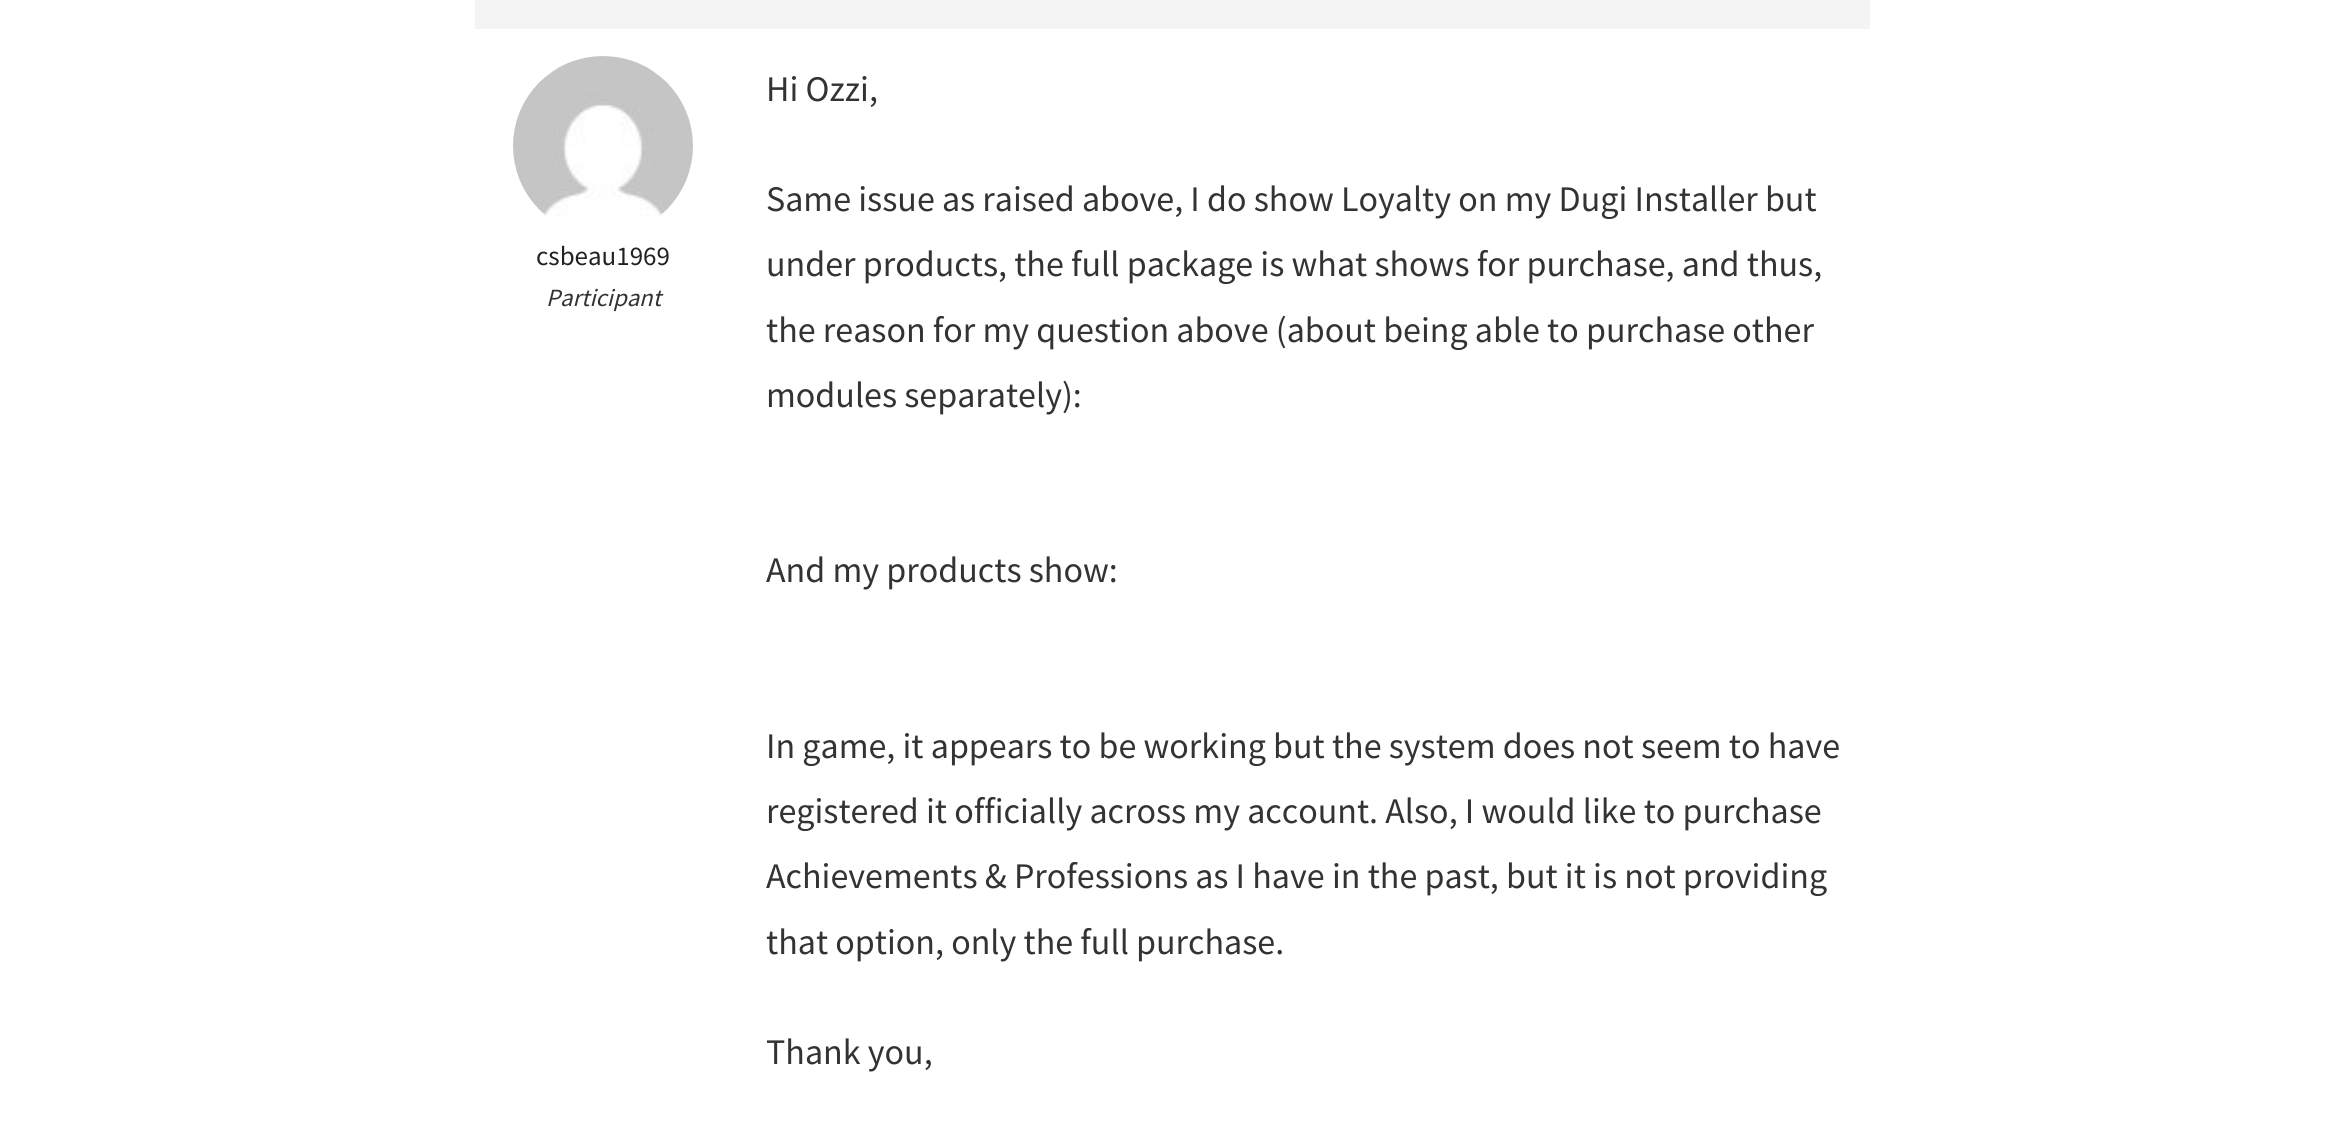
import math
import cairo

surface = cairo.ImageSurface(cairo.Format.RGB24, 2344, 1125)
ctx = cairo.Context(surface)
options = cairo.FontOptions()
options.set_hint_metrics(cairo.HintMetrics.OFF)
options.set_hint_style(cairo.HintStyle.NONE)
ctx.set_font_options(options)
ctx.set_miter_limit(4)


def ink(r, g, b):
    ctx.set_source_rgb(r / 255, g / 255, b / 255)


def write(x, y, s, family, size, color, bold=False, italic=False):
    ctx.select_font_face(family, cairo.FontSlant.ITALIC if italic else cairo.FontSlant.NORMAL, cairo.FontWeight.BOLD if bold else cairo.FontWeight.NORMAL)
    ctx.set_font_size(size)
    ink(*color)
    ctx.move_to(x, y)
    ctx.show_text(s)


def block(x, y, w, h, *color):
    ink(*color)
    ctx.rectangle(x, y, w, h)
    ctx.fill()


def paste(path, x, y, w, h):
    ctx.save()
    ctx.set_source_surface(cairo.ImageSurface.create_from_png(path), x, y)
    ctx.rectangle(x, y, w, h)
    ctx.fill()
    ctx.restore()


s1 = dict(family="Source Sans Pro", size=27, color=(34, 34, 34))
s2 = dict(family="Source Sans Pro", size=24.75, color=(51, 51, 51), italic=True)
s3 = dict(family="Source Sans Pro", size=36, color=(51, 51, 51))

ink(255, 255, 255)
ctx.paint()
block(475, 0, 1395, 29, 244, 244, 244)
paste("pic1.png", 513, 56, 180, 160)
write(536, 265, "csbeau1969", **s1)
write(546, 306, "Participant", **s2)
write(766, 101, "Hi Ozzi,", **s3)
write(766, 211, "Same issue as raised above, I do show Loyalty on my Dugi Installer but", **s3)
write(766, 276, "under products, the full package is what shows for purchase, and thus,", **s3)
write(766, 342, "the reason for my question above (about being able to purchase other", **s3)
write(766, 407, "modules separately):", **s3)
write(766, 582, "And my products show:", **s3)
write(766, 758, "In game, it appears to be working but the system does not seem to have", **s3)
write(766, 823, "registered it officially across my account. Also, I would like to purchase", **s3)
write(766, 888, "Achievements & Professions as I have in the past, but it is not providing", **s3)
write(766, 954, "that option, only the full purchase.", **s3)
write(766, 1064, "Thank you,", **s3)
surface.write_to_png("screenshot.png")
